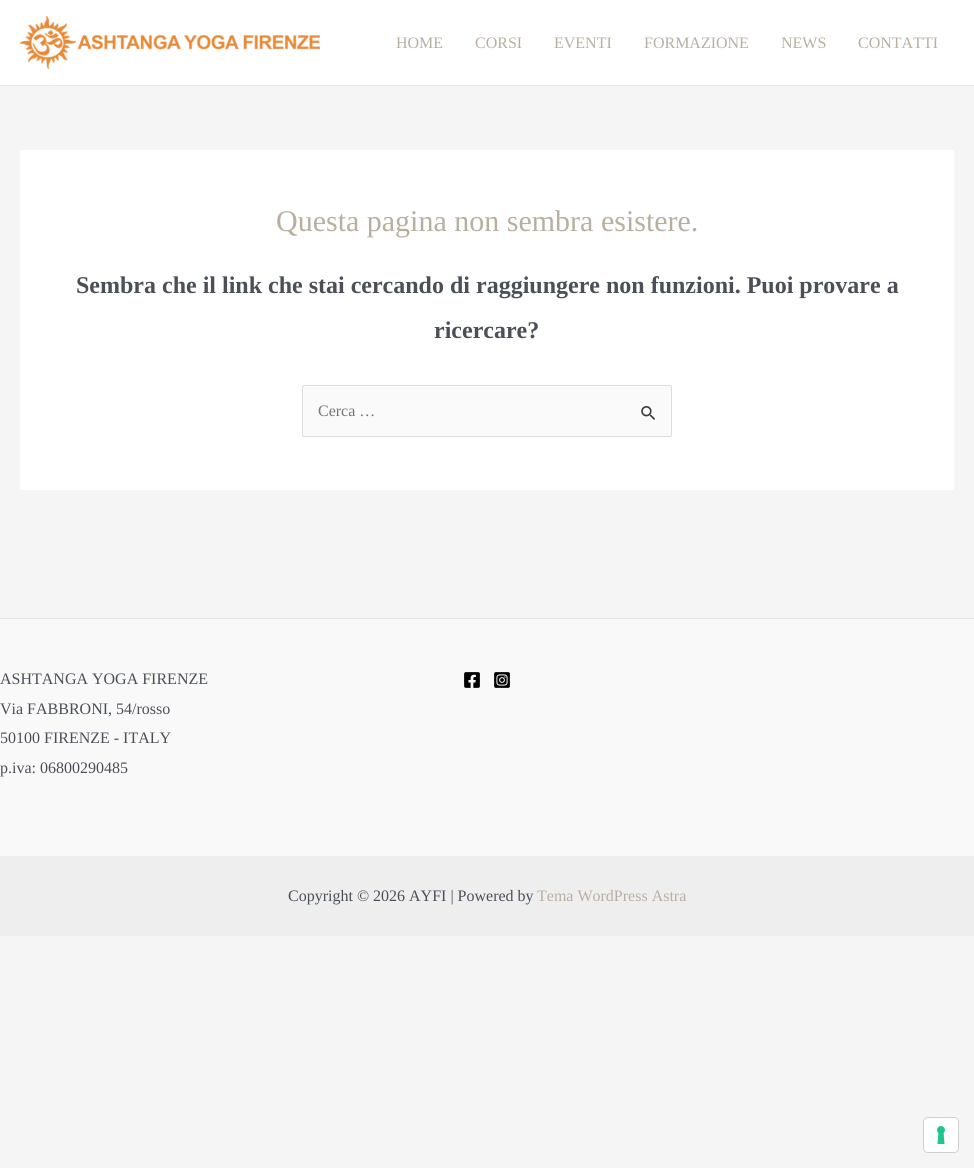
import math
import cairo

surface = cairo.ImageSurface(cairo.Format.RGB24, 974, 1168)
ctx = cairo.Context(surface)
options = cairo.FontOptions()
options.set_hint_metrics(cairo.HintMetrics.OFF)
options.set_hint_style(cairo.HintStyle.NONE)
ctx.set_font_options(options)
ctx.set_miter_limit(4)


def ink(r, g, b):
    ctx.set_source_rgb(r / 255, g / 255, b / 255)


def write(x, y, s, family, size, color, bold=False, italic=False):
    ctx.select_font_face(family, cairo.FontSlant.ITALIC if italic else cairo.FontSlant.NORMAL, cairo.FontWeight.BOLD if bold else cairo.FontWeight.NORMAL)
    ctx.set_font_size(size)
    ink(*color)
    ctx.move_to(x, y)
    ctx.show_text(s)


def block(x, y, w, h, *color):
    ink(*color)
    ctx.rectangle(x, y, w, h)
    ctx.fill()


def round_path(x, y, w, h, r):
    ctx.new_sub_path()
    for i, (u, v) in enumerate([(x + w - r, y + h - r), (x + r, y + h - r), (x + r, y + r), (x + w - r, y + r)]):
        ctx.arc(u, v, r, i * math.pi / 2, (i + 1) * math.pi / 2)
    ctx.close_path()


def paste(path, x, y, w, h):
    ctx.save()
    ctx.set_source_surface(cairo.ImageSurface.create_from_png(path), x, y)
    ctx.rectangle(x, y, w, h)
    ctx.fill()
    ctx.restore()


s1 = dict(family="Liberation Serif", size=16, color=(185, 175, 161))
s2 = dict(family="Liberation Serif", size=30, color=(185, 175, 161))
s3 = dict(family="Liberation Serif", size=24, color=(75, 79, 88), bold=True)
s4 = dict(family="Liberation Serif", size=16, color=(117, 117, 117))
s5 = dict(family="Liberation Serif", size=16, color=(75, 79, 88))

ink(245, 245, 245)
ctx.paint()
block(0, 0, 974, 85, 255, 255, 255)
block(0, 85, 974, 1, 234, 234, 234)
paste("pic1.png", 20, 16, 300, 53)
write(396, 48, "HOME", **s1)
write(475, 48, "CORSI", **s1)
write(554, 48, "EVENTI", **s1)
write(644, 48, "FORMAZIONE", **s1)
write(781, 48, "NEWS", **s1)
write(858, 48, "CONTATTI", **s1)
block(20, 150, 934, 340, 255, 255, 255)
write(276, 231, "Questa pagina non sembra esistere.", **s2)
write(76, 293, "Sembra che il link che stai cercando di raggiungere non funzioni. Puoi provare a", **s3)
write(434, 338, "ricercare?", **s3)
ink(250, 250, 250)
round_path(302.5, 385.5, 369, 51, 1.5)
ctx.fill_preserve()
ink(221, 221, 221)
ctx.set_line_width(1)
ctx.stroke()
write(318, 416, "Cerca …", **s4)
paste("pic2.png", 641, 406, 14, 14)
block(0, 619, 974, 237, 249, 249, 249)
block(0, 618, 974, 1, 230, 230, 230)
write(0, 684, "ASHTANGA YOGA FIRENZE", **s5)
write(0, 714, "Via FABBRONI, 54/rosso", **s5)
write(0, 743, "50100 FIRENZE - ITALY", **s5)
write(0, 773, "p.iva: 06800290485", **s5)
paste("pic3.png", 464, 672, 16, 16)
paste("pic4.png", 494, 672, 16, 16)
block(0, 856, 974, 80, 238, 238, 238)
write(288, 901, "Copyright © 2026 AYFI | Powered by", **s5)
write(537, 901, "Tema WordPress Astra", **s1)
round_path(923.5, 1117.5, 35, 35, 4.5)
ink(208, 208, 208)
ctx.stroke()
ink(255, 255, 255)
round_path(924, 1118, 34, 34, 4)
ctx.fill()
paste("pic5.png", 937, 1126, 8, 18)
surface.write_to_png("screenshot.png")
